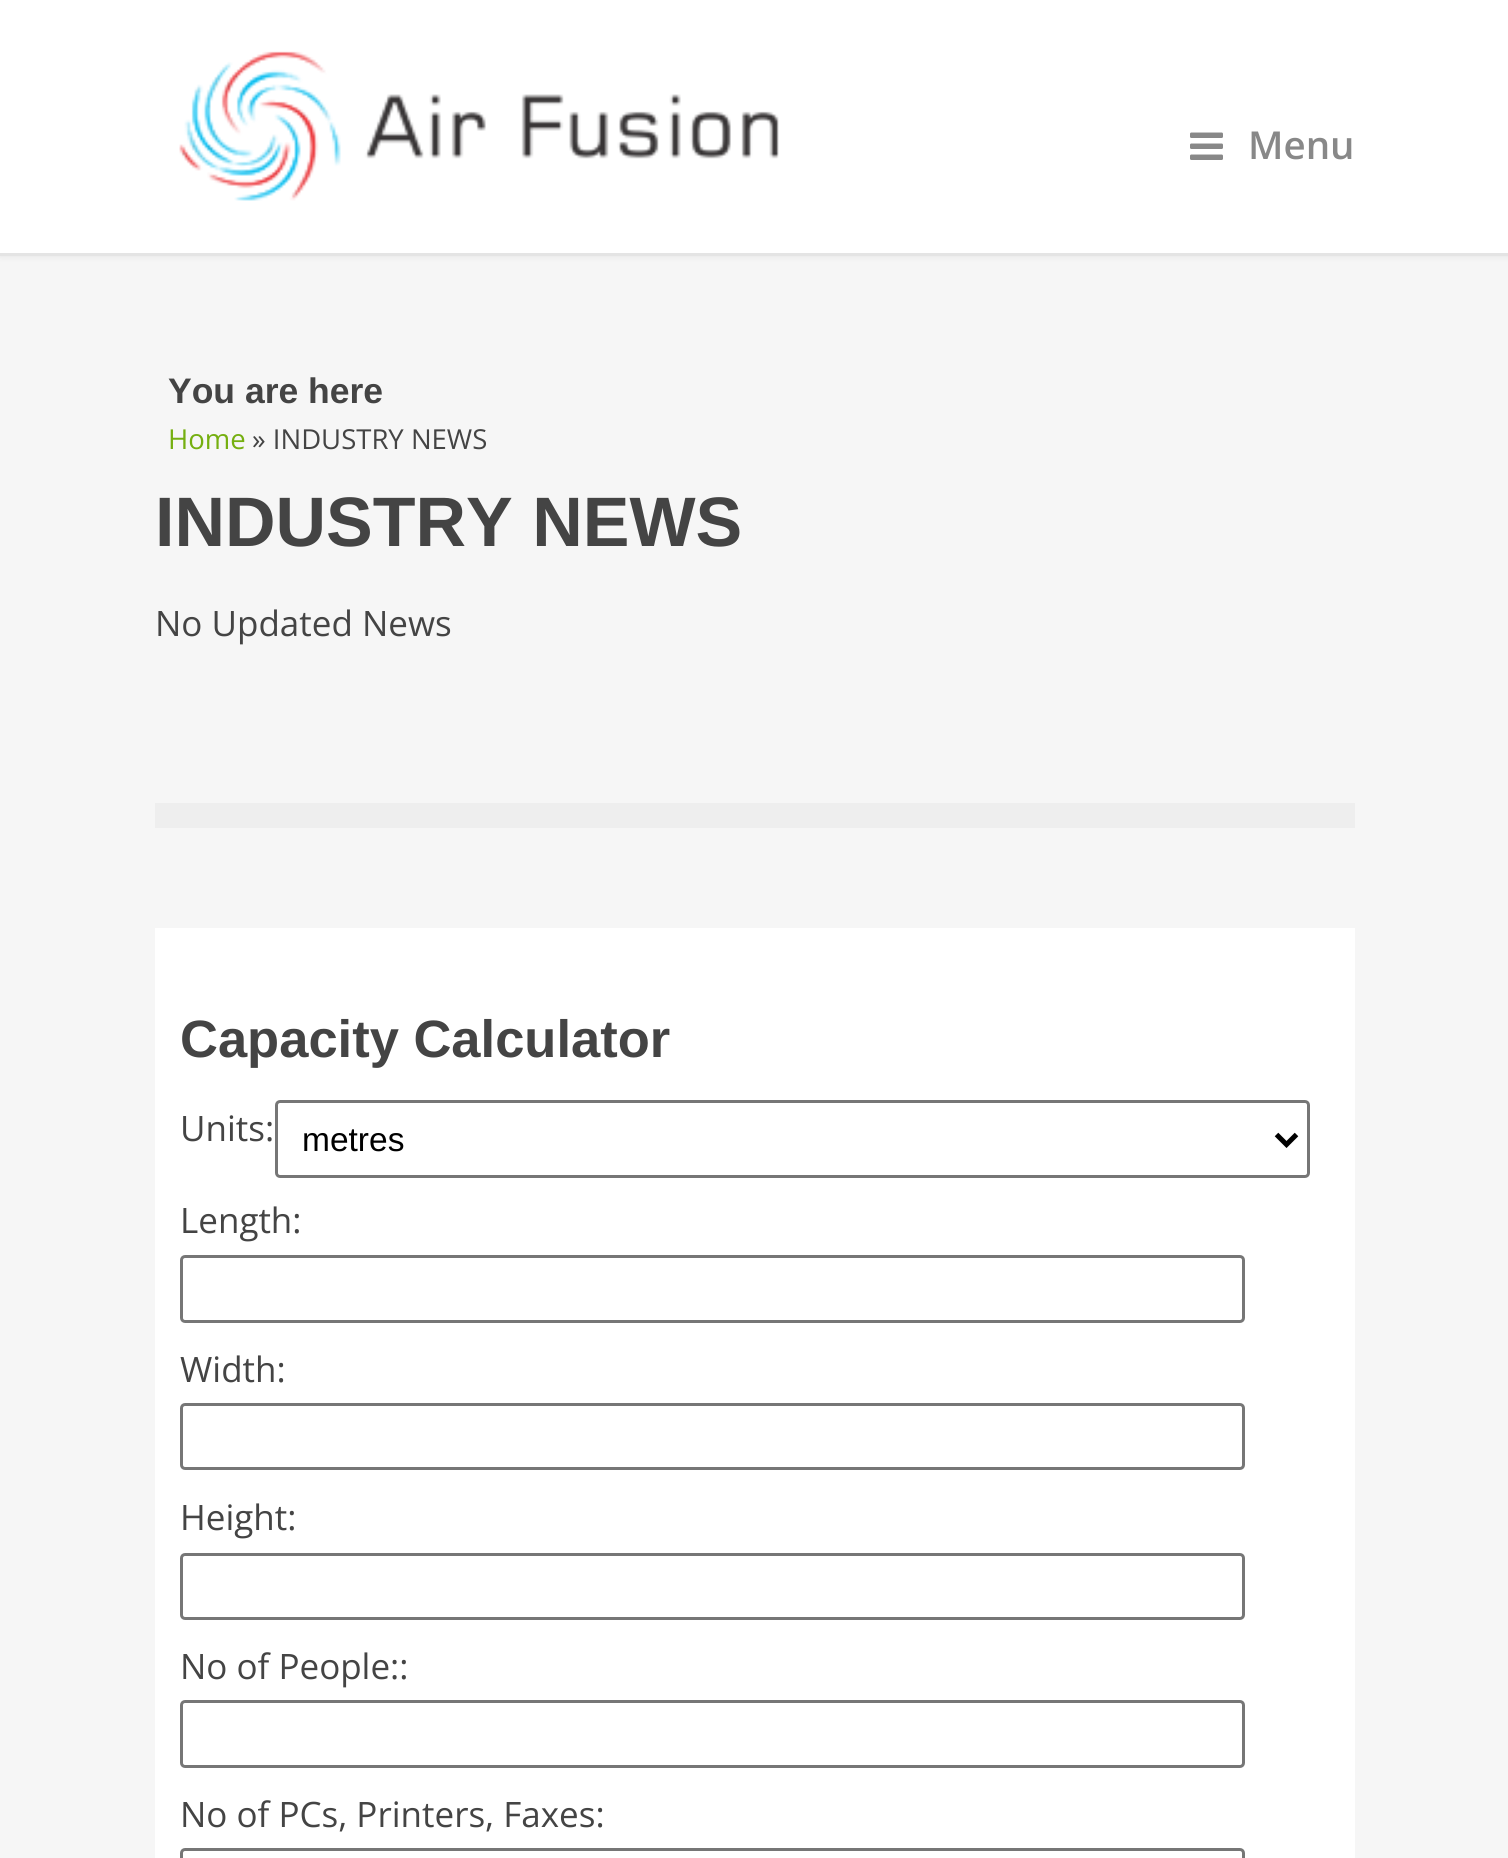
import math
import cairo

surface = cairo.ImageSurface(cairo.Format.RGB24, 1508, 1858)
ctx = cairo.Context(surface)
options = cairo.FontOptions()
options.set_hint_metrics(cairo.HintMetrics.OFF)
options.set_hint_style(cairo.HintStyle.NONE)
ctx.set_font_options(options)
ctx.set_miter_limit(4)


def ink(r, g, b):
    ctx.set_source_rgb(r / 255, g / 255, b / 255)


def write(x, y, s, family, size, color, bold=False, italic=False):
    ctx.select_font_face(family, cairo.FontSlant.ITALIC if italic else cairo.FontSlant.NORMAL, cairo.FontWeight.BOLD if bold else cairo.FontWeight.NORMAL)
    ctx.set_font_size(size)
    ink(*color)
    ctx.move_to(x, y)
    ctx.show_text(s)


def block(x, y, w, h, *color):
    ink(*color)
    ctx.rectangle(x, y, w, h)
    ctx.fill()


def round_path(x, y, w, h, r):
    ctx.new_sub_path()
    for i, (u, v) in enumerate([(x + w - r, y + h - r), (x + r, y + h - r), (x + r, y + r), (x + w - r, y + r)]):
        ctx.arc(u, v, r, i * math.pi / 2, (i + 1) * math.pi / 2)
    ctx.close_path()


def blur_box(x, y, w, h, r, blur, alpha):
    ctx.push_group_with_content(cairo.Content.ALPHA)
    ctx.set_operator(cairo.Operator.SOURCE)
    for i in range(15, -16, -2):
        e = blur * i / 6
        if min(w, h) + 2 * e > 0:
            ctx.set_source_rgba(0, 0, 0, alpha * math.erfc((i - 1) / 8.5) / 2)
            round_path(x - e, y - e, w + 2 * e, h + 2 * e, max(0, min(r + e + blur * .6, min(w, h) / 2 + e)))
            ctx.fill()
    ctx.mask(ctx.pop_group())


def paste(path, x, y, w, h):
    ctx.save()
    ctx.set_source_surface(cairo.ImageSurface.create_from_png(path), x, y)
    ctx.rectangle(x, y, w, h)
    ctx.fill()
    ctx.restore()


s1 = dict(family="Open Sans SemiBold", size=38.5, color=(136, 136, 136))
s2 = dict(family="Liberation Sans", size=35.5, color=(68, 68, 68), bold=True)
s3 = dict(family="Open Sans", size=27.5, color=(117, 175, 16))
s4 = dict(family="Open Sans", size=27.5, color=(68, 68, 68))
s5 = dict(family="Liberation Sans", size=70, color=(68, 68, 68), bold=True)
s6 = dict(family="Open Sans", size=35, color=(68, 68, 68))
s7 = dict(family="Liberation Sans", size=52.5, color=(68, 68, 68), bold=True)
s8 = dict(family="Liberation Sans", size=33.5, color=(0, 0, 0))

ink(246, 246, 246)
ctx.paint()
ink(0, 0, 0)
blur_box(0, 0, 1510, 255, 0, 4, 0.1)
block(0, 0, 1508, 253, 255, 255, 255)
block(0, 253, 1508, 3, 228, 228, 228)
paste("pic1.png", 179, 51, 600, 150)
paste("pic2.png", 1190, 132, 33, 28)
write(1248, 159, "Menu", **s1)
write(168, 403, "You are here", **s2)
write(168, 449, "Home", **s3)
write(252, 449, "» INDUSTRY NEWS", **s4)
write(155, 546, "INDUSTRY NEWS", **s5)
write(155, 636, "No Updated News", **s6)
block(155, 803, 1200, 25, 238, 238, 238)
block(155, 928, 1200, 930, 255, 255, 255)
write(180, 1057, "Capacity Calculator", **s7)
write(180, 1141, "Units:", **s6)
round_path(276.5, 1101.5, 1032, 75, 3.5)
ink(118, 118, 118)
ctx.set_line_width(3)
ctx.stroke()
ctx.new_path()
ctx.move_to(1276.5, 1134.5)
ctx.line_to(1286.5, 1144.5)
ctx.line_to(1296.5, 1134.5)
ink(0, 0, 0)
ctx.set_line_width(5)
ctx.stroke()
write(302, 1151, "metres", **s8)
write(180, 1233, "Length:", **s6)
round_path(181.5, 1256.5, 1062, 65, 3.5)
ink(118, 118, 118)
ctx.set_line_width(3)
ctx.stroke()
write(180, 1382, "Width:", **s6)
round_path(181.5, 1404.5, 1062, 64, 3.5)
ink(118, 118, 118)
ctx.stroke()
write(180, 1530, "Height:", **s6)
round_path(181.5, 1554.5, 1062, 64, 3.5)
ink(118, 118, 118)
ctx.stroke()
write(180, 1679, "No of People::", **s6)
round_path(181.5, 1701.5, 1062, 65, 3.5)
ink(118, 118, 118)
ctx.stroke()
write(180, 1827, "No of PCs, Printers, Faxes:", **s6)
round_path(181.5, 1849.5, 1062, 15, 3.5)
ink(118, 118, 118)
ctx.stroke()
surface.write_to_png("screenshot.png")
